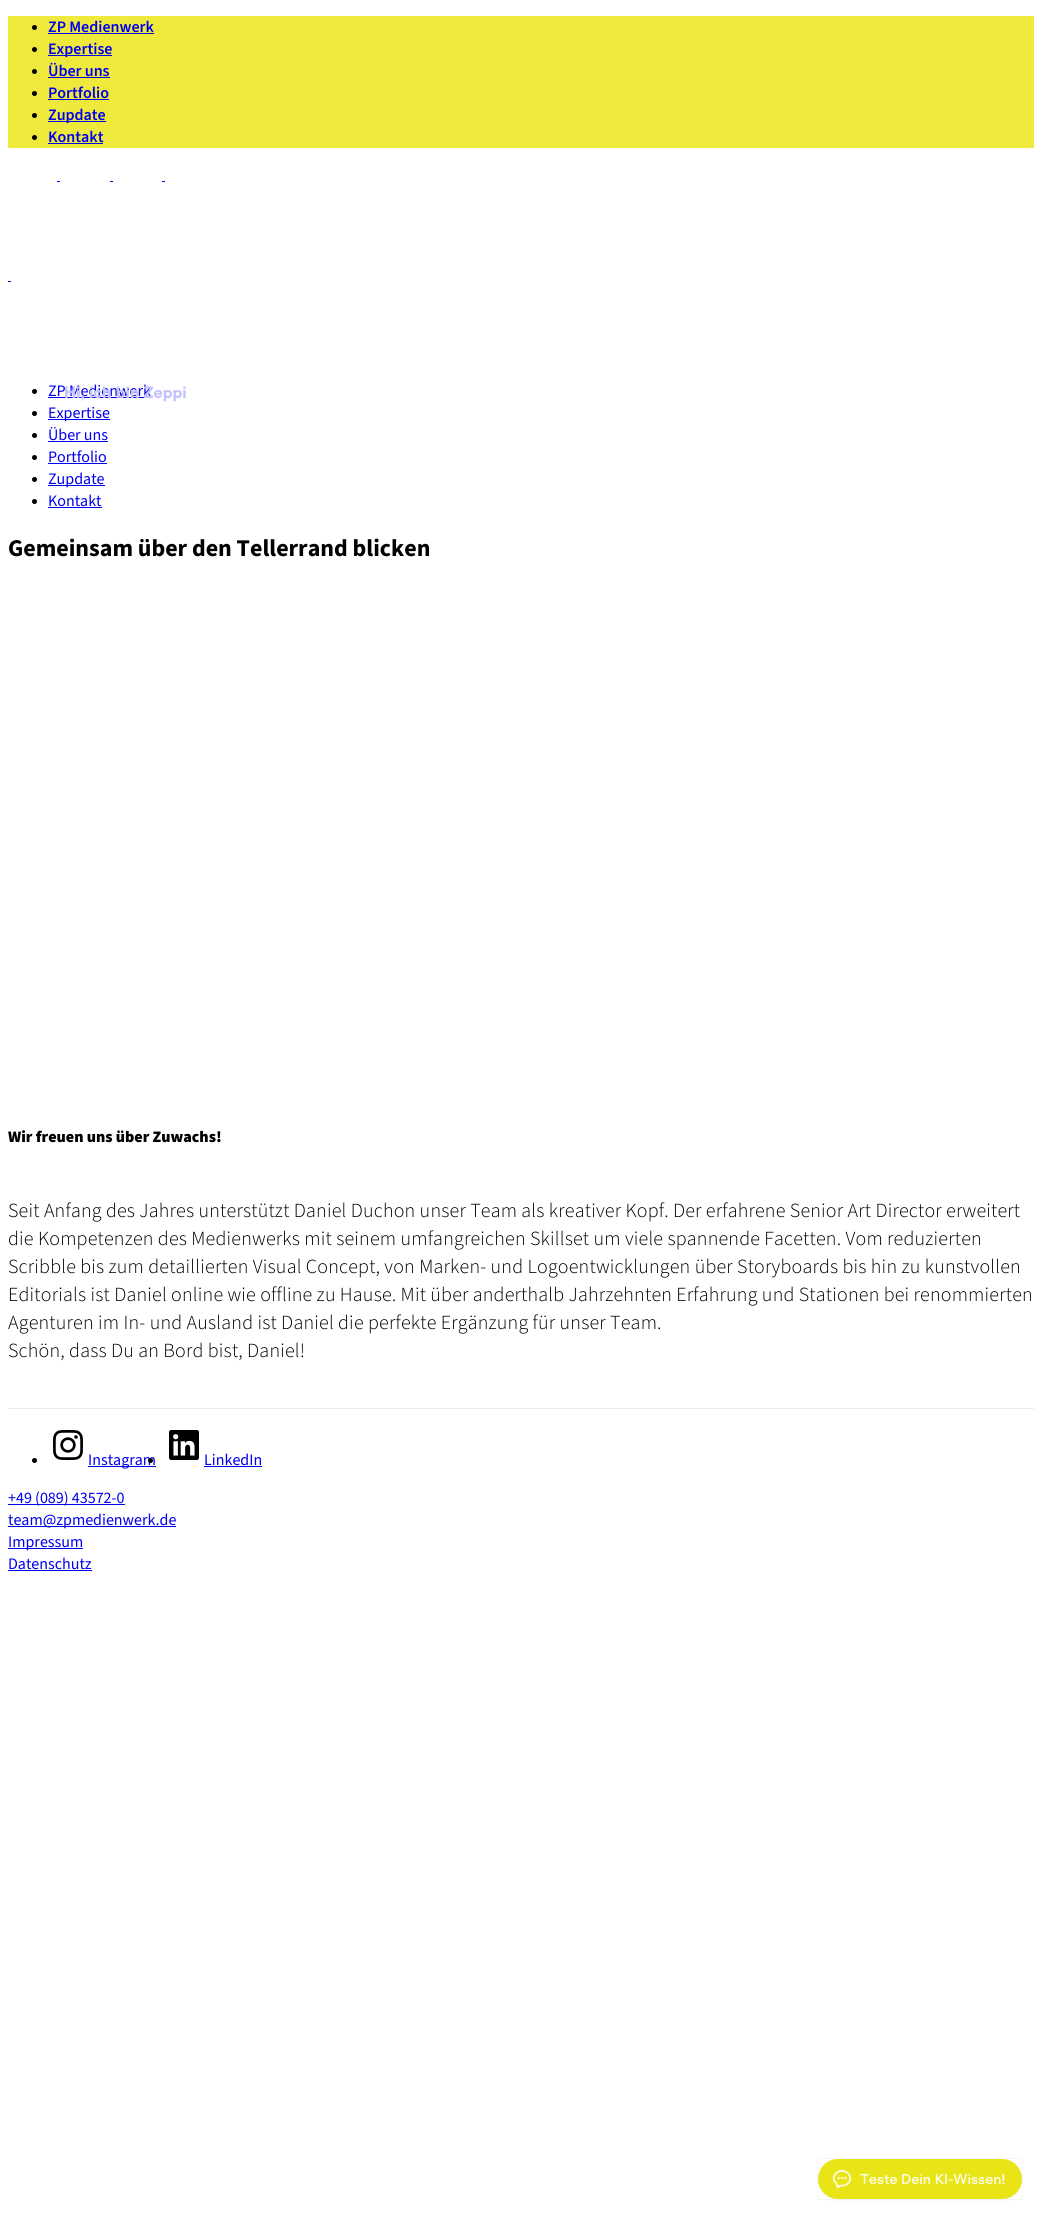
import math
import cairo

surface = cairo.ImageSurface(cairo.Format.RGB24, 1042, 2219)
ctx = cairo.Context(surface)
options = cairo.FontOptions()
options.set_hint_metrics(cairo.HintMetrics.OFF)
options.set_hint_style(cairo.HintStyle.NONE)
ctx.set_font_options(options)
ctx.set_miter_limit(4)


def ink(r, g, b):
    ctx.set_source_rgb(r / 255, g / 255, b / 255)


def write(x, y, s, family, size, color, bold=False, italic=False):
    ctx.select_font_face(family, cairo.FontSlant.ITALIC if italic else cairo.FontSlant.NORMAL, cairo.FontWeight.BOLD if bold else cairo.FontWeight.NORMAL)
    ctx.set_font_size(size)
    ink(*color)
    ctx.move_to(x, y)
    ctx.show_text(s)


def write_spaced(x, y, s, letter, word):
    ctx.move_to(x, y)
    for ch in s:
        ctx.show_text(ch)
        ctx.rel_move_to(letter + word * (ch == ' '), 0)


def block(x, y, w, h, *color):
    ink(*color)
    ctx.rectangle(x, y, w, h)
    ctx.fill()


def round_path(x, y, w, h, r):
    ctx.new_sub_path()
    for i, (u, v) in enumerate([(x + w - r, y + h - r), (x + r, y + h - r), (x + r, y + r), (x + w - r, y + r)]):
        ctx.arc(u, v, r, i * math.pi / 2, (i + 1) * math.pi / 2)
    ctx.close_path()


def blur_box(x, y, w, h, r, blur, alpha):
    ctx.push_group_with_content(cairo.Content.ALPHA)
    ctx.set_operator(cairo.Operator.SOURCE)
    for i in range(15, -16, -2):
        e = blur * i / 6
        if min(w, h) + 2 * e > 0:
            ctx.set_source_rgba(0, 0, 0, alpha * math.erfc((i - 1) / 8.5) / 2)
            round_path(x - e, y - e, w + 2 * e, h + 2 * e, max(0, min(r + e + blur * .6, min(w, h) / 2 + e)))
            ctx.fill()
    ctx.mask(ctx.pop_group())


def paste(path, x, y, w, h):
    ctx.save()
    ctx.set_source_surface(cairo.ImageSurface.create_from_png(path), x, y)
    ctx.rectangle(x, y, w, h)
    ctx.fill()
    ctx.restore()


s1 = dict(family="Source Sans 3 SemiBold", size=16, color=(0, 0, 238))
s2 = dict(family="Source Sans 3", size=16, color=(0, 0, 238))
s3 = dict(family="Source Sans 3", size=24, color=(0, 0, 0), bold=True)
s4 = dict(family="Source Sans 3 Black", size=16, color=(0, 0, 0))
s5 = dict(family="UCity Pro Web", size=16, color=(196, 196, 251), bold=True)
s6 = dict(family="UCity Pro Web SemiBold", size=14, color=(253, 252, 232))

ink(255, 255, 255)
ctx.paint()
block(8, 16, 1026, 132, 238, 233, 59)
ink(0, 0, 0)
ctx.arc(34.5, 27.5, 2.5, 0, 2 * math.pi)
ctx.fill()
write(48, 32, "ZP Medienwerk", **s1)
block(48, 33, 106, 1, 0, 0, 238)
ink(0, 0, 0)
ctx.new_path()
ctx.arc(34.5, 49.5, 2.5, 0, 2 * math.pi)
ctx.fill()
block(48, 55, 64, 1, 0, 0, 238)
write(48, 54, "Expertise", **s1)
ink(0, 0, 0)
ctx.new_path()
ctx.arc(34.5, 71.5, 2.5, 0, 2 * math.pi)
ctx.fill()
write(48, 76, "Über uns", **s1)
block(48, 77, 62, 1, 0, 0, 238)
ink(0, 0, 0)
ctx.new_path()
ctx.arc(34.5, 93.5, 2.5, 0, 2 * math.pi)
ctx.fill()
write(48, 98, "Portfolio", **s1)
block(48, 99, 61, 1, 0, 0, 238)
ink(0, 0, 0)
ctx.new_path()
ctx.arc(34.5, 115.5, 2.5, 0, 2 * math.pi)
ctx.fill()
block(48, 121, 58, 1, 0, 0, 238)
write(48, 120, "Zupdate", **s1)
ink(0, 0, 0)
ctx.new_path()
ctx.arc(34.5, 137.5, 2.5, 0, 2 * math.pi)
ctx.fill()
write(48, 142, "Kontakt", **s1)
block(48, 143, 55, 1, 0, 0, 238)
block(57, 181, 3, 1, 0, 0, 238)
block(110, 181, 3, 1, 0, 0, 238)
block(162, 181, 3, 1, 0, 0, 238)
block(8, 281, 3, 1, 0, 0, 238)
ink(0, 0, 0)
ctx.new_path()
ctx.arc(34.5, 391.5, 2.5, 0, 2 * math.pi)
ctx.fill()
write(48, 396, "ZP Medienwerk", **s2)
block(48, 397, 103, 1, 0, 0, 238)
ink(0, 0, 0)
ctx.new_path()
ctx.arc(34.5, 413.5, 2.5, 0, 2 * math.pi)
ctx.fill()
block(48, 419, 62, 1, 0, 0, 238)
write(48, 418, "Expertise", **s2)
ink(0, 0, 0)
ctx.new_path()
ctx.arc(34.5, 435.5, 2.5, 0, 2 * math.pi)
ctx.fill()
write(48, 440, "Über uns", **s2)
block(48, 441, 60, 1, 0, 0, 238)
ink(0, 0, 0)
ctx.new_path()
ctx.arc(34.5, 457.5, 2.5, 0, 2 * math.pi)
ctx.fill()
write(48, 462, "Portfolio", **s2)
block(48, 463, 59, 1, 0, 0, 238)
ink(0, 0, 0)
ctx.new_path()
ctx.arc(34.5, 479.5, 2.5, 0, 2 * math.pi)
ctx.fill()
block(48, 485, 57, 1, 0, 0, 238)
write(48, 484, "Zupdate", **s2)
ink(0, 0, 0)
ctx.new_path()
ctx.arc(34.5, 501.5, 2.5, 0, 2 * math.pi)
ctx.fill()
write(48, 506, "Kontakt", **s2)
block(48, 507, 54, 1, 0, 0, 238)
write(8, 556, "Gemeinsam über den Tellerrand blicken", **s3)
write(8, 1142, "Wir freuen uns über Zuwachs!", **s4)
ctx.select_font_face("Source Sans 3 Light")
ctx.set_font_size(20)
write_spaced(8, 1217, "Seit Anfang des Jahres unterstützt Daniel Duchon unser Team als kreativer Kopf. Der erfahrene Senior Art Director erweitert", 0.2, 0)
write_spaced(8, 1245, "die Kompetenzen des Medienwerks mit seinem umfangreichen Skillset um viele spannende Facetten. Vom reduzierten", 0.2, 0)
write_spaced(8, 1273, "Scribble bis zum detaillierten Visual Concept, von Marken- und Logoentwicklungen über Storyboards bis hin zu kunstvollen", 0.2, 0)
write_spaced(8, 1301, "Editorials ist Daniel online wie offline zu Hause. Mit über anderthalb Jahrzehnten Erfahrung und Stationen bei renommierten", 0.2, 0)
write_spaced(8, 1329, "Agenturen im In- und Ausland ist Daniel die perfekte Ergänzung für unser Team.", 0.2, 0)
write_spaced(8, 1357, "Schön, dass Du an Bord bist, Daniel!", 0.2, 0)
block(8, 1408, 1026, 1, 236, 236, 236)
paste("pic1.png", 53, 1430, 30, 30)
ink(0, 0, 0)
ctx.arc(34.5, 1460.5, 2.5, 0, 2 * math.pi)
ctx.fill()
block(88, 1466, 68, 1, 0, 0, 238)
write(88, 1465, "Instagram", **s2)
ink(0, 0, 0)
ctx.new_path()
ctx.arc(150.5, 1460.5, 2.5, 0, 2 * math.pi)
ctx.fill()
paste("pic2.png", 169, 1430, 30, 30)
write(204, 1465, "LinkedIn", **s2)
block(204, 1466, 58, 1, 0, 0, 238)
block(8, 1504, 117, 1, 0, 0, 238)
write(8, 1503, "+49 (089) 43572-0", **s2)
block(8, 1526, 168, 1, 0, 0, 238)
write(8, 1525, "team@zpmedienwerk.de", **s2)
block(8, 1548, 75, 1, 0, 0, 238)
write(8, 1547, "Impressum", **s2)
write(8, 1569, "Datenschutz", **s2)
block(8, 1570, 84, 1, 0, 0, 238)
write(64, 398, "Hi, ich bin Zeppi", **s5)
ink(22, 26, 30)
blur_box(824, 2169, 192, 28, 14, 4, 0.08)
ctx.rectangle(817.5, 2158.5, 205, 41)
ctx.set_source_rgba(0.086, 0.102, 0.118, 0.04)
ctx.set_line_width(1)
ctx.stroke()
ink(233, 228, 22)
round_path(818, 2159, 204, 40, 20)
ctx.fill()
paste("pic3.png", 832, 2169, 20, 20)
write(860, 2184, "Teste Dein KI-Wissen!", **s6)
surface.write_to_png("screenshot.png")
